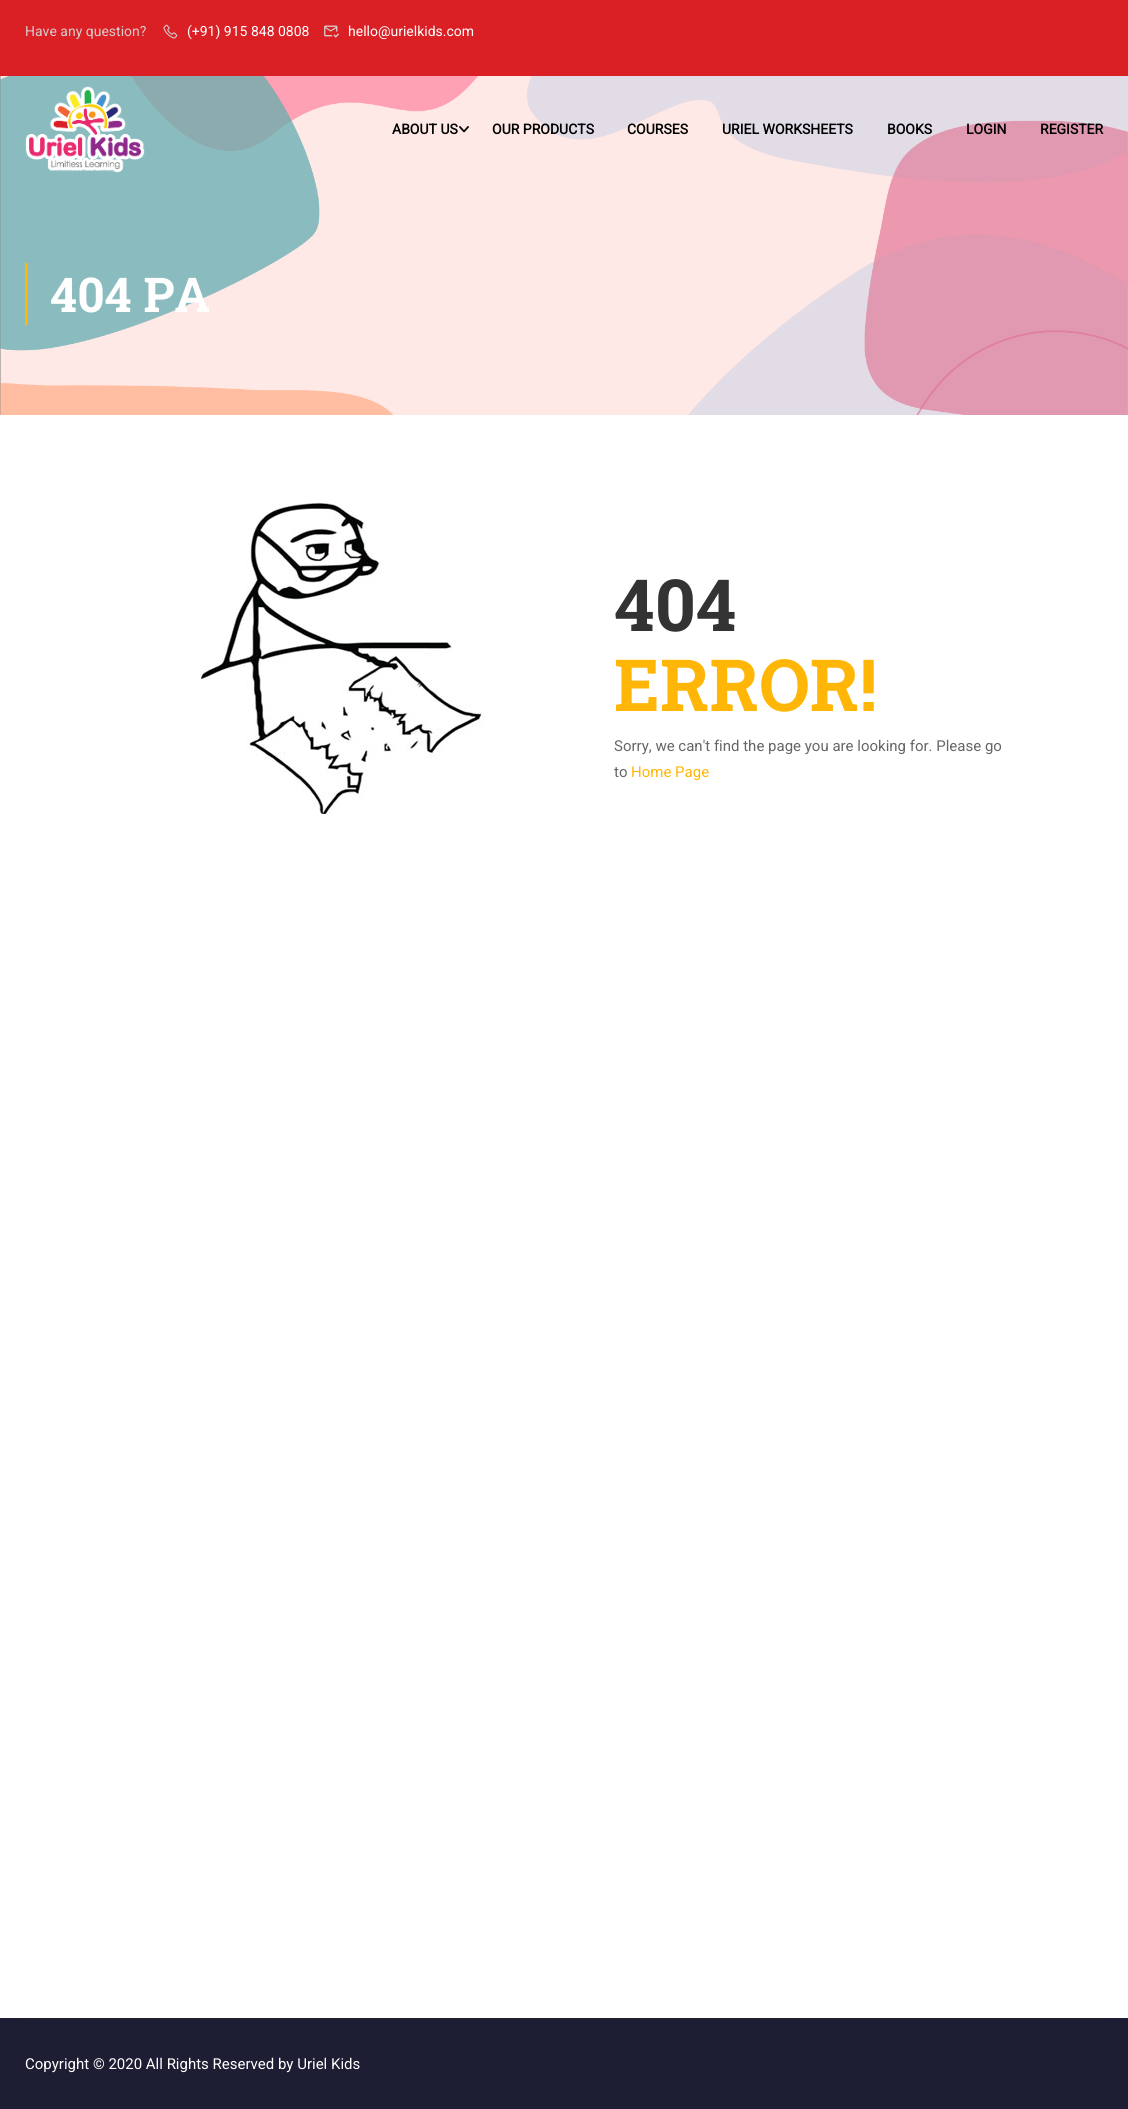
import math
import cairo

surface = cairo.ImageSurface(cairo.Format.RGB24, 1128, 2109)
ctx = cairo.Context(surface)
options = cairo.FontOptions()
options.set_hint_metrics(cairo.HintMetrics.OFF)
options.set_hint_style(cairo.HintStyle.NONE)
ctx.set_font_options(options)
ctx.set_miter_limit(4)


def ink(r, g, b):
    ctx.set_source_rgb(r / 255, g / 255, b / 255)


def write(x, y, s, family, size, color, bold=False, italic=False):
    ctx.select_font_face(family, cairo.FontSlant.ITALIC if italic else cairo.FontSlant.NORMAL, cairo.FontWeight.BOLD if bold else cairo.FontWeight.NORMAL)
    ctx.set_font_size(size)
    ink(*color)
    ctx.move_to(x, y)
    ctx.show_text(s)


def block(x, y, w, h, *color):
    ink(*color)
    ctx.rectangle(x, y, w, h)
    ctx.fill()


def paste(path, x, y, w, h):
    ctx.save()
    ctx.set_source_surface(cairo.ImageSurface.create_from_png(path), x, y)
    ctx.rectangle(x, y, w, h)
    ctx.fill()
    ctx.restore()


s1 = dict(family="Roboto", size=14, color=(214, 204, 204))
s2 = dict(family="Roboto", size=14, color=(255, 255, 255))
s3 = dict(family="Roboto", size=14, color=(0, 0, 0), bold=True)
s4 = dict(family="Roboto Slab", size=48, color=(255, 255, 255), bold=True)
s5 = dict(family="Roboto Slab", size=72, color=(51, 51, 51), bold=True)
s6 = dict(family="Roboto Slab", size=72, color=(255, 182, 6), bold=True)
s7 = dict(family="Roboto", size=15, color=(102, 102, 102))
s8 = dict(family="Roboto", size=15, color=(255, 182, 6))
s9 = dict(family="Roboto", size=15, color=(255, 255, 255))

ink(255, 255, 255)
ctx.paint()
block(0, 0, 1128, 76, 218, 31, 37)
write(25, 36, "Have any question?", **s1)
paste("pic1.png", 163, 24, 15, 15)
write(187, 36, "(+91) 915 848 0808", **s2)
paste("pic2.png", 324, 25, 15, 13)
write(348, 36, "hello@urielkids.com", **s2)
block(0, 76, 1128, 339, 66, 71, 76)
paste("pic5.png", 0, 76, 1128, 339)
paste("pic3.png", 25, 86, 120, 87)
write(392, 134, "ABOUT US", **s3)
paste("pic4.png", 459, 126, 10, 7)
write(492, 134, "OUR PRODUCTS", **s3)
write(627, 134, "COURSES", **s3)
write(722, 134, "URIEL WORKSHEETS", **s3)
write(887, 134, "BOOKS", **s3)
write(966, 134, "LOGIN", **s3)
write(1040, 134, "REGISTER", **s3)
block(25, 263, 3, 62, 255, 182, 6)
write(50, 312, "404 PA", **s4)
paste("pic6.png", 199, 502, 287, 312)
write(614, 631, "404", **s5)
write(614, 711, "ERROR!", **s6)
write(614, 751, "Sorry, we can't find the page you are looking for. Please go", **s7)
write(614, 777, "to", **s7)
write(631, 777, "Home Page", **s8)
block(0, 2018, 1128, 91, 29, 29, 52)
block(25, 2018, 1078, 1, 34, 34, 34)
write(25, 2069, "Copyright © 2020 All Rights Reserved by Uriel Kids", **s9)
surface.write_to_png("screenshot.png")
